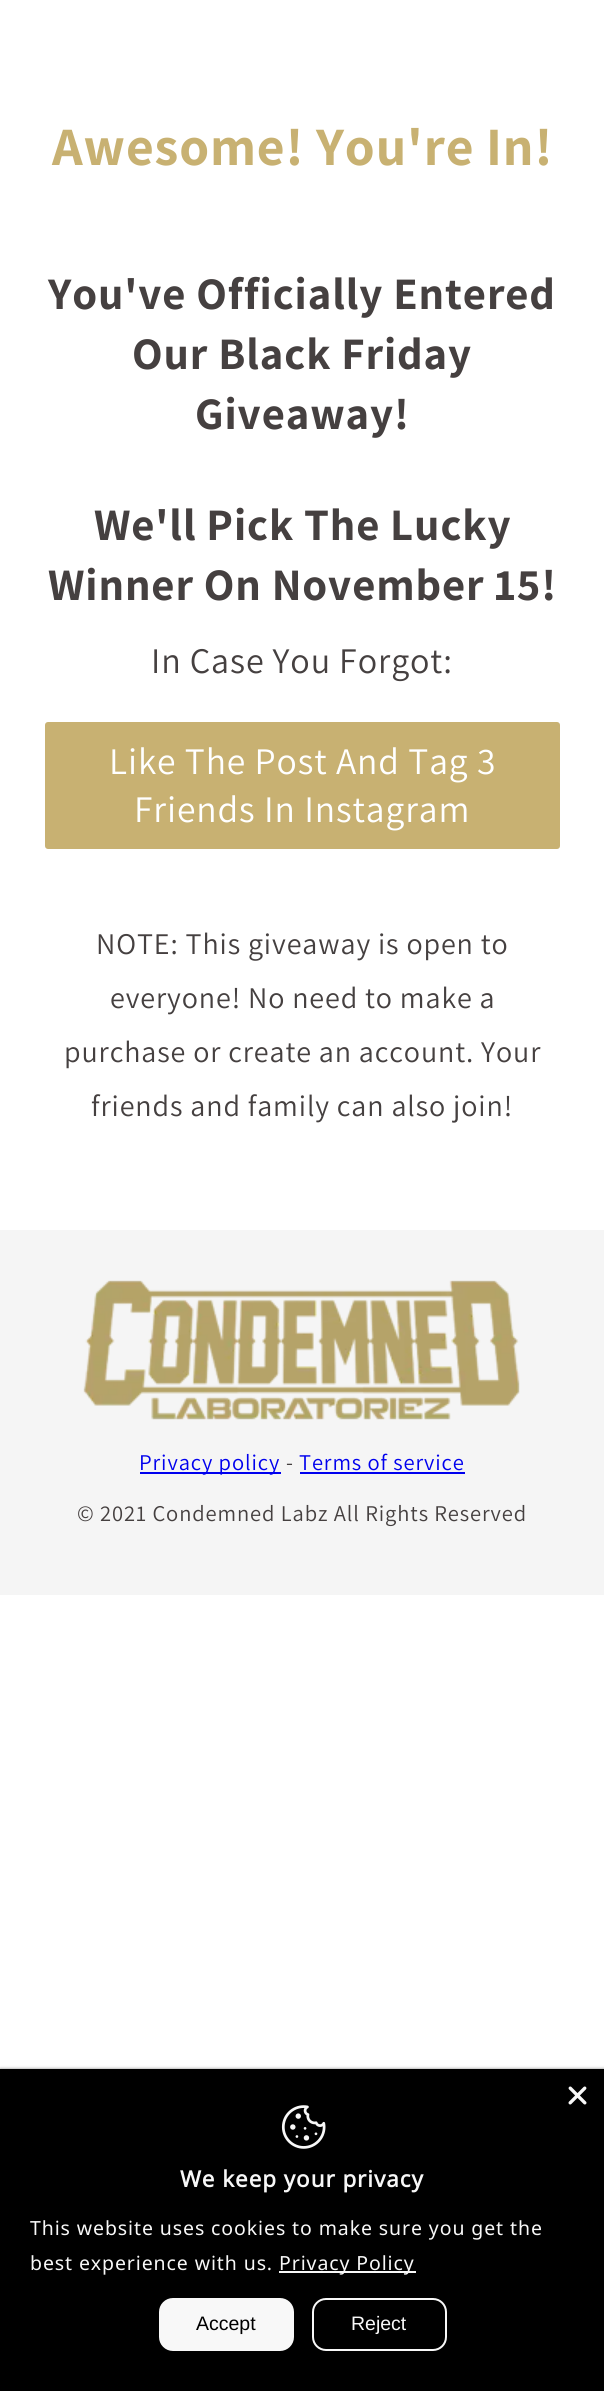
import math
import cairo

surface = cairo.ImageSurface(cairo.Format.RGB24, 604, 2391)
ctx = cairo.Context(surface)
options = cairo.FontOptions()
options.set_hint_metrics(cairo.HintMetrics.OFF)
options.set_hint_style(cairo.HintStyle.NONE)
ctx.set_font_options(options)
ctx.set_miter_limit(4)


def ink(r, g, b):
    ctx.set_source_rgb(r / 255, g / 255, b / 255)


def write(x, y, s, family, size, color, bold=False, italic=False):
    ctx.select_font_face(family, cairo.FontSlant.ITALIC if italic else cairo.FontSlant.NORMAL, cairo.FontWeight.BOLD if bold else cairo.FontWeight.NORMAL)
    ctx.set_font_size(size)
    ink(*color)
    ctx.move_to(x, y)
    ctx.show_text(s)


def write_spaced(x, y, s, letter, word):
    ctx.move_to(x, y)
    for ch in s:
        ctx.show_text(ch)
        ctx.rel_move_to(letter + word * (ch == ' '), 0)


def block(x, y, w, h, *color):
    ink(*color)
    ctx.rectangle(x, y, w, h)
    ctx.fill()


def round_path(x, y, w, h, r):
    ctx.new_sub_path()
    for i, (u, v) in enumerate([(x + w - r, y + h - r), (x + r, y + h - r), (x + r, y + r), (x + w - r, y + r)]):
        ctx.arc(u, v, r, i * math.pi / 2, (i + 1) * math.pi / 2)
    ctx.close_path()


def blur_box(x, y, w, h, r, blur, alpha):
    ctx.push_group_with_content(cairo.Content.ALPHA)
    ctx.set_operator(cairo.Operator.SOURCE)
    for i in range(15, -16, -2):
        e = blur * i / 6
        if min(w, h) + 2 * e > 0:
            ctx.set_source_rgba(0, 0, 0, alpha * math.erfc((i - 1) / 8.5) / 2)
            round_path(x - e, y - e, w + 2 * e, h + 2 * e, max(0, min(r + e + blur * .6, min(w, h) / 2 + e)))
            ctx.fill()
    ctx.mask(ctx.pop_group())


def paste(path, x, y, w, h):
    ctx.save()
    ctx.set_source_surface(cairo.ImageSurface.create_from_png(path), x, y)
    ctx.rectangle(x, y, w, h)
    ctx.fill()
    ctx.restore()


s1 = dict(family="Liberation Sans", size=19.5, color=(0, 0, 0))
s2 = dict(family="Liberation Sans", size=19.5, color=(248, 248, 248))

ink(255, 255, 255)
ctx.paint()
ctx.select_font_face("Assistant", cairo.FontSlant.NORMAL, cairo.FontWeight.BOLD)
ctx.set_font_size(54)
ink(200, 177, 114)
write_spaced(52, 165, "Awesome! You're In!", 0.9, 0)
ctx.set_font_size(45)
ink(69, 64, 64)
write_spaced(48, 309, "You've Officially Entered", 0.9, 0)
write_spaced(132, 369, "Our Black Friday", 0.9, 0)
write_spaced(195, 429, "Giveaway!", 0.9, 0)
write_spaced(94, 540, "We'll Pick The Lucky", 0.9, 0)
write_spaced(48, 600, "Winner On November 15!", 0.9, 0)
ctx.select_font_face("Assistant")
ctx.set_font_size(36)
write_spaced(151, 673, "In Case You Forgot:", 0.9, 0)
ink(200, 177, 114)
round_path(45, 722, 515, 127, 3)
ctx.fill()
ctx.set_font_size(37.5)
ink(255, 255, 255)
write_spaced(109, 774, "Like The Post And Tag 3", 0.9, 0)
write_spaced(134, 822, "Friends In Instagram", 0.9, 0)
ctx.set_font_size(30)
ink(69, 64, 64)
write_spaced(96, 954, "NOTE: This giveaway is open to", 0.9, 0)
write_spaced(110, 1008, "everyone! No need to make a", 0.9, 0)
write_spaced(64, 1062, "purchase or create an account. Your", 0.9, 0)
write_spaced(91, 1116, "friends and family can also join!", 0.9, 0)
block(0, 1230, 604, 365, 245, 245, 245)
paste("pic1.png", 83, 1280, 437, 140)
block(140, 1472, 141, 2, 0, 0, 238)
ctx.set_font_size(22.5)
write_spaced(139, 1470, "Privacy policy", 0.9, 0)
ink(69, 64, 64)
write_spaced(286, 1470, "-", 0.9, 0)
ink(0, 0, 238)
write_spaced(299, 1470, "Terms of service", 0.9, 0)
block(300, 1472, 165, 2, 0, 0, 238)
ink(69, 64, 64)
write_spaced(77, 1521, "© 2021 Condemned Labz All Rights Reserved", 0.9, 0)
ink(0, 0, 0)
blur_box(0, 2069, 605, 322, 0, 1.5, 0.5)
block(0, 2069, 604, 322, 0, 0, 0)
paste("pic2.png", 568, 2086, 19, 19)
paste("pic3.png", 281, 2105, 45, 44)
ctx.select_font_face("Noto Sans", cairo.FontSlant.NORMAL, cairo.FontWeight.BOLD)
ink(248, 248, 248)
write_spaced(180, 2187, "We keep your privacy", 0.9, 0)
ctx.select_font_face("Noto Sans")
ctx.set_font_size(19.5)
write_spaced(30, 2235, "This website uses cookies to make sure you get the", 0.9, 0)
write_spaced(30, 2270, "best experience with us.", 0.9, 0)
block(279, 2271, 137, 2, 248, 248, 248)
write_spaced(279, 2270, "Privacy Policy", 0.9, 0)
round_path(159, 2298, 135, 53, 14)
ctx.fill()
write(196, 2330, "Accept", **s1)
round_path(313, 2299, 133, 51, 13)
ink(248, 248, 248)
ctx.stroke()
write(351, 2330, "Reject", **s2)
surface.write_to_png("screenshot.png")
